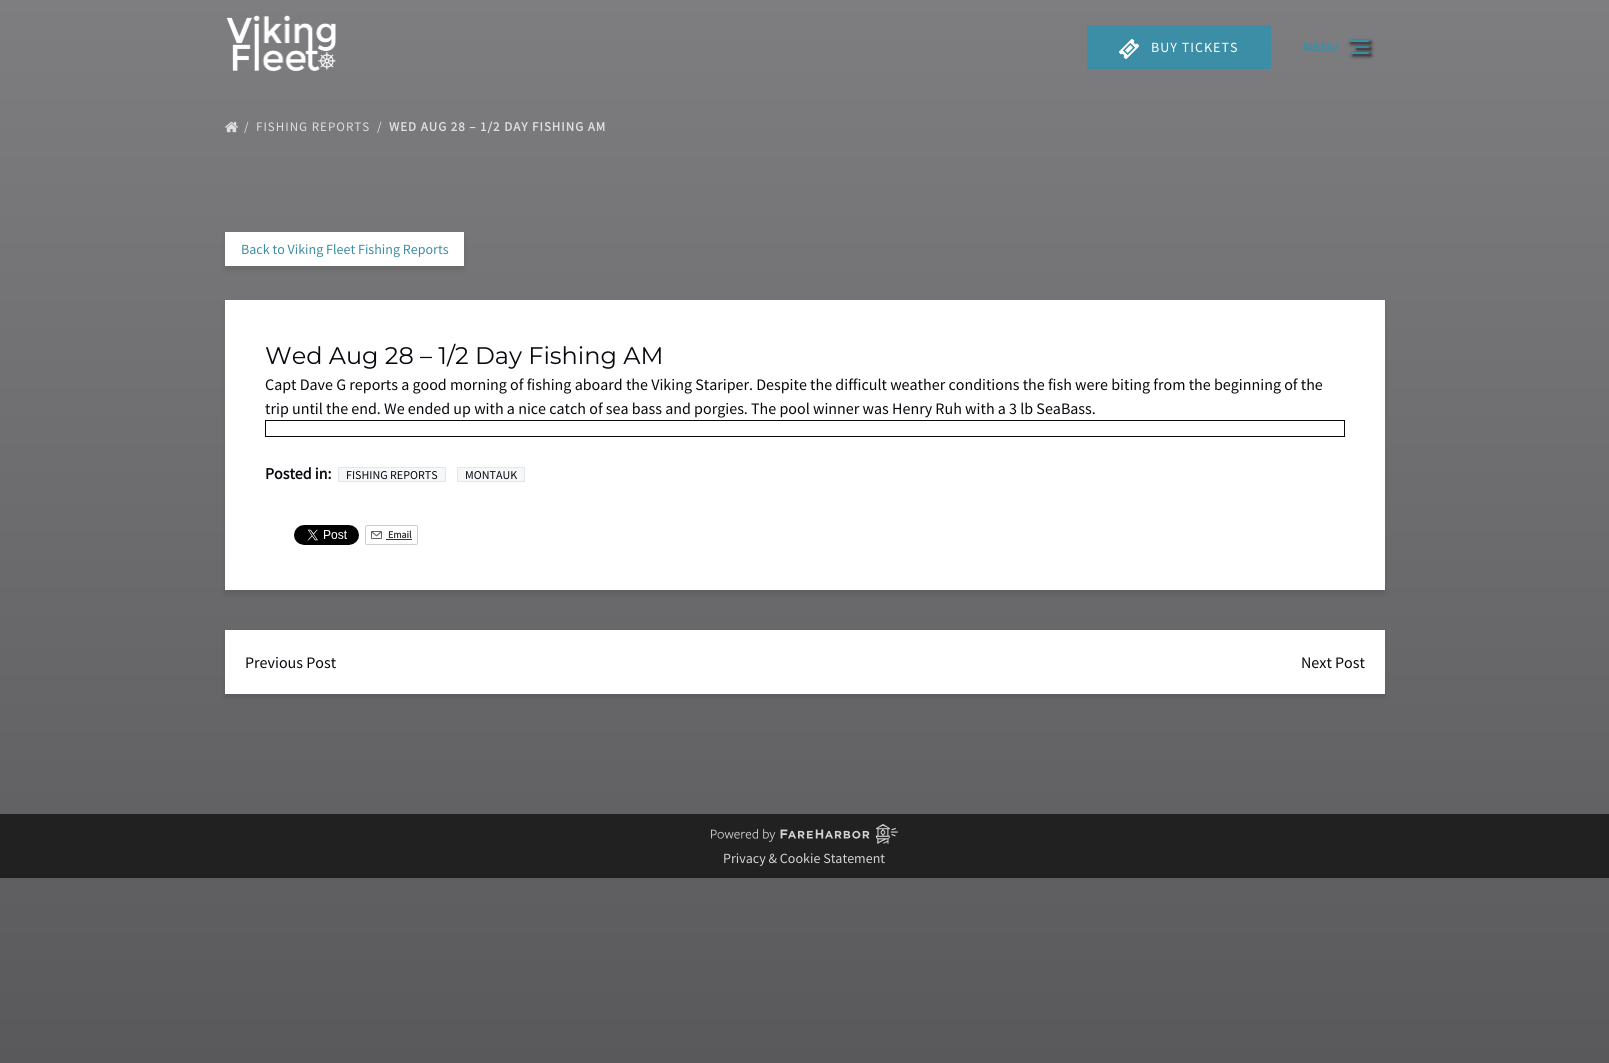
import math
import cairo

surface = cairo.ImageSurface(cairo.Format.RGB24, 1609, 1063)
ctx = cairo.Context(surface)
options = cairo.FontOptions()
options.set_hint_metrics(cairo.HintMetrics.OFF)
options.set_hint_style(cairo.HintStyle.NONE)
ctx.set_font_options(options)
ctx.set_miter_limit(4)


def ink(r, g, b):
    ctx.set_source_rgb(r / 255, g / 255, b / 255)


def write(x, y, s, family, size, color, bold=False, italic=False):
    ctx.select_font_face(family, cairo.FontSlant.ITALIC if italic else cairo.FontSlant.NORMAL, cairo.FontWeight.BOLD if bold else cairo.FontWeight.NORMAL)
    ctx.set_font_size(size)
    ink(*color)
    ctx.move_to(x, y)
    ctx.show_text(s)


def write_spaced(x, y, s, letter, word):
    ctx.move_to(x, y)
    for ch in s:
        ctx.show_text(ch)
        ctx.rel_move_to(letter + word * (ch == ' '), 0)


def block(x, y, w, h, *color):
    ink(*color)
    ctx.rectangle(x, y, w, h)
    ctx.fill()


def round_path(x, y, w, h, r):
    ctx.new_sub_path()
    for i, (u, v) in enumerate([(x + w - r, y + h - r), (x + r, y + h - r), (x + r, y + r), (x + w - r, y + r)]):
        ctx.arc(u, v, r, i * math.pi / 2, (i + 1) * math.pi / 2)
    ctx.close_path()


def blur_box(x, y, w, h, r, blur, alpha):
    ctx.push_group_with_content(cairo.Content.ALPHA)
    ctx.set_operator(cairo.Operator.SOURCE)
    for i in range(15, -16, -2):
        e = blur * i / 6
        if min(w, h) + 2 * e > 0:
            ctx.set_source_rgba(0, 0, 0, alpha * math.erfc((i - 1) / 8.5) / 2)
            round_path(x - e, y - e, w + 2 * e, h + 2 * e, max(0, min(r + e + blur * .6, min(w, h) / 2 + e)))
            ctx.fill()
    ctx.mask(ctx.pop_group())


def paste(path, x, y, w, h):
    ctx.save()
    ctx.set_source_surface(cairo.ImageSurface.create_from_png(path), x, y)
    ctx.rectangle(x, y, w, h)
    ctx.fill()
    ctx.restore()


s1 = dict(family="Liberation Sans", size=12, color=(59, 142, 165), bold=True)
s2 = dict(family="Source Sans Pro", size=14, color=(59, 142, 165))
s3 = dict(family="Montserrat Thin", size=24, color=(8, 9, 14))
s4 = dict(family="Source Sans Pro", size=16, color=(8, 9, 14))
s5 = dict(family="Source Sans Pro", size=16, color=(8, 9, 14), bold=True)
s6 = dict(family="Source Sans Pro", size=12, color=(8, 9, 14))
s7 = dict(family="Source Sans Pro", size=10, color=(51, 51, 51), bold=True)
s8 = dict(family="Source Sans Pro", size=14, color=(211, 211, 211))

ink(255, 255, 255)
ctx.paint()
gradient = cairo.LinearGradient(805, 1063, 805, 0)
gradient.add_color_stop_rgba(0, 0.349, 0.349, 0.361, 1)
gradient.add_color_stop_rgba(1, 0.494, 0.494, 0.506, 1)
ctx.set_source(gradient)
ctx.rectangle(0, 0, 1609, 1063)
ctx.fill()
gradient = cairo.LinearGradient(805, 1063, 805, 0)
gradient.add_color_stop_rgba(0, 0.122, 0.122, 0.125, 1)
gradient.add_color_stop_rgba(1, 0.153, 0.153, 0.153, 1)
ctx.set_source(gradient)
ctx.rectangle(0, 814, 1609, 64)
ctx.fill()
paste("pic1.png", 226, 15, 110, 57)
block(1087, 25, 184, 44, 59, 142, 165)
paste("pic2.png", 1119, 39, 20, 20)
ctx.select_font_face("Source Sans Pro")
ctx.set_font_size(14)
ink(255, 255, 255)
write_spaced(1151, 52, "BUY TICKETS", 1, 0)
write(1303, 51, "MENU", **s1)
ink(0, 0, 0)
blur_box(1357, 48, 14, 2, 1, 2, 0.75)
ink(59, 142, 165)
round_path(1355, 46, 14, 2, 1)
ctx.fill()
ink(0, 0, 0)
blur_box(1351, 42, 20, 2, 1, 2, 0.75)
ink(59, 142, 165)
round_path(1349, 40, 20, 2, 1)
ctx.fill()
ink(0, 0, 0)
blur_box(1353, 54, 18, 2, 1, 2, 0.75)
ink(59, 142, 165)
round_path(1351, 52, 18, 2, 1)
ctx.fill()
paste("pic3.png", 225, 121, 13, 12)
ctx.select_font_face("Source Sans Pro")
ctx.set_font_size(13)
ink(222, 222, 222)
write_spaced(244, 131, "/", 1, 0)
write_spaced(256, 131, "FISHING REPORTS", 1, 0)
write_spaced(377, 131, "/", 1, 0)
ctx.select_font_face("Source Sans Pro", cairo.FontSlant.NORMAL, cairo.FontWeight.BOLD)
write_spaced(389, 131, "WED AUG 28 – 1/2 DAY FISHING AM", 1, 0)
ink(0, 0, 0)
blur_box(225, 236, 239, 34, 0, 3, 0.1)
block(225, 232, 239, 34, 255, 255, 255)
write(241, 254, "Back to Viking Fleet Fishing Reports", **s2)
ink(0, 0, 0)
blur_box(225, 304, 1160, 290, 0, 3, 0.1)
block(225, 300, 1160, 290, 255, 255, 255)
write(265, 364, "Wed Aug 28 – 1/2 Day Fishing AM", **s3)
write(265, 390, "Capt Dave G reports a good morning of fishing aboard the Viking Stariper. Despite the difficult weather conditions the fish were biting from the beginning of the", **s4)
write(265, 414, "trip until the end. We ended up with a nice catch of sea bass and porgies. The pool winner was Henry Ruh with a 3 lb SeaBass.", **s4)
block(265, 420, 1080, 1, 8, 9, 14)
block(1344, 420, 1, 17, 8, 9, 14)
block(265, 436, 1080, 1, 8, 9, 14)
block(265, 420, 1, 17, 8, 9, 14)
write(265, 479, "Posted in:", **s5)
ink(245, 247, 249)
ctx.rectangle(338.5, 467.5, 107, 14)
ctx.fill_preserve()
ink(228, 230, 233)
ctx.set_line_width(1)
ctx.stroke()
write(346, 479, "FISHING REPORTS", **s6)
ink(245, 247, 249)
ctx.rectangle(457.5, 467.5, 67, 14)
ctx.fill_preserve()
ink(228, 230, 233)
ctx.stroke()
write(465, 479, "MONTAUK", **s6)
paste("pic4.png", 294, 525, 65, 20)
round_path(365.5, 525.5, 52, 19, 1.5)
ink(207, 207, 207)
ctx.stroke()
paste("pic5.png", 371, 531, 11, 8)
write(388, 538, "Email", **s7)
block(386, 539, 26, 1, 51, 51, 51)
ink(0, 0, 0)
blur_box(225, 634, 1160, 64, 0, 3, 0.1)
block(225, 630, 1160, 64, 255, 255, 255)
write(245, 668, "Previous Post", **s4)
write(1301, 668, "Next Post", **s4)
paste("pic6.png", 711, 824, 187, 20)
write(723, 863, "Privacy & Cookie Statement", **s8)
surface.write_to_png("screenshot.png")
